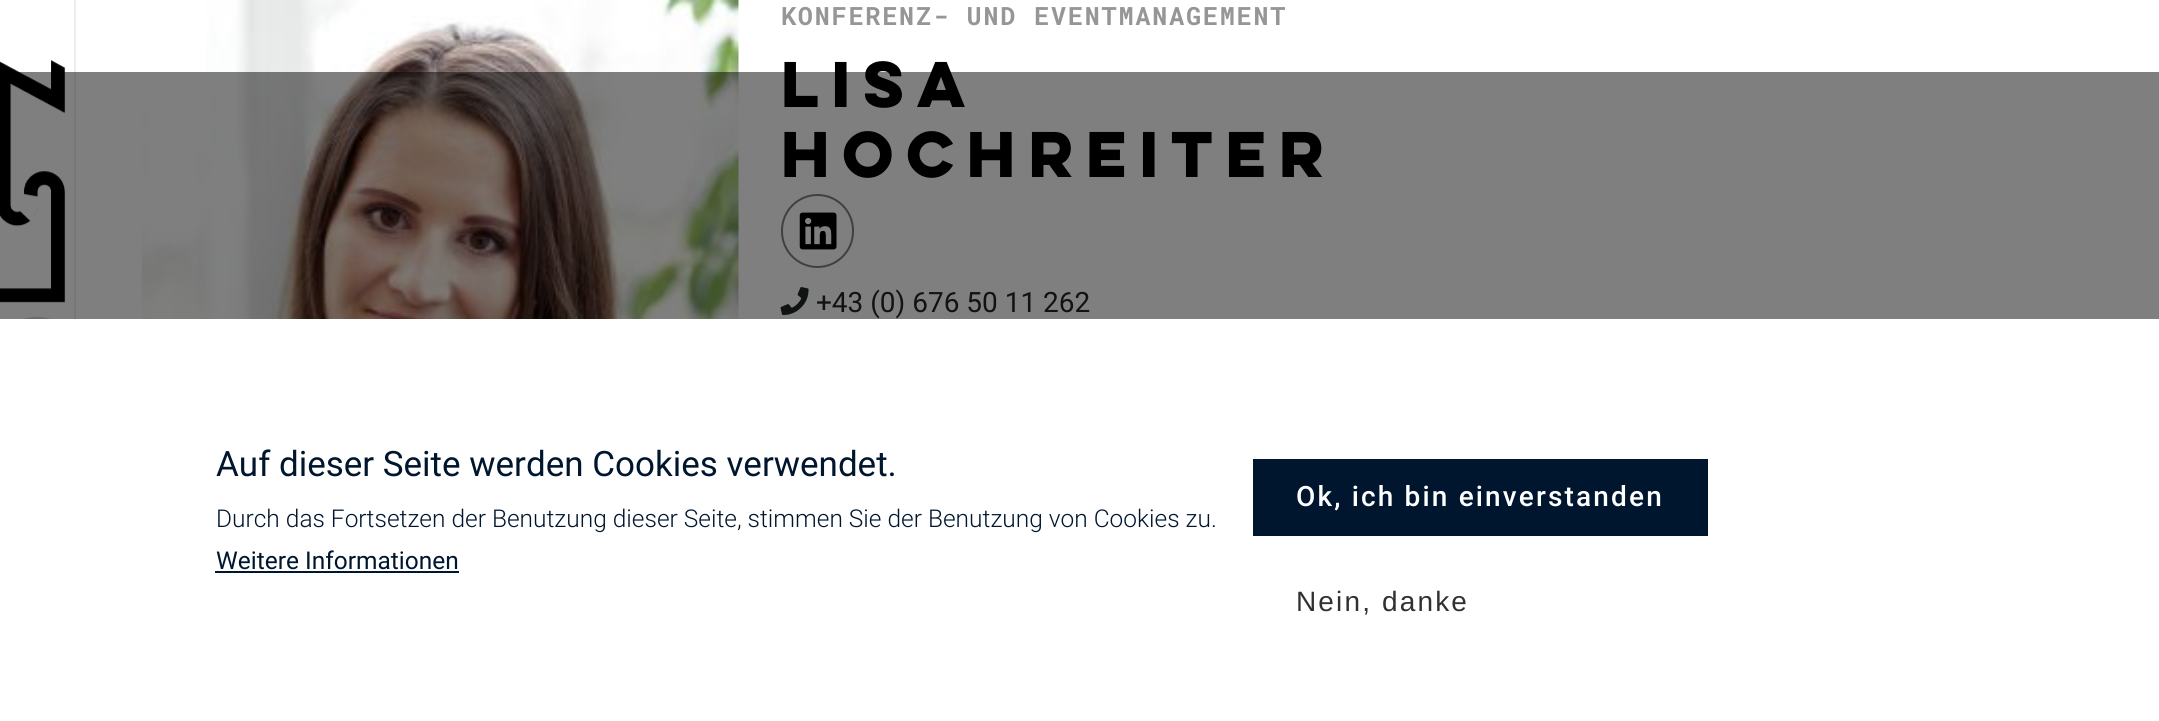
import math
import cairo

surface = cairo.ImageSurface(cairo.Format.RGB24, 2159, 721)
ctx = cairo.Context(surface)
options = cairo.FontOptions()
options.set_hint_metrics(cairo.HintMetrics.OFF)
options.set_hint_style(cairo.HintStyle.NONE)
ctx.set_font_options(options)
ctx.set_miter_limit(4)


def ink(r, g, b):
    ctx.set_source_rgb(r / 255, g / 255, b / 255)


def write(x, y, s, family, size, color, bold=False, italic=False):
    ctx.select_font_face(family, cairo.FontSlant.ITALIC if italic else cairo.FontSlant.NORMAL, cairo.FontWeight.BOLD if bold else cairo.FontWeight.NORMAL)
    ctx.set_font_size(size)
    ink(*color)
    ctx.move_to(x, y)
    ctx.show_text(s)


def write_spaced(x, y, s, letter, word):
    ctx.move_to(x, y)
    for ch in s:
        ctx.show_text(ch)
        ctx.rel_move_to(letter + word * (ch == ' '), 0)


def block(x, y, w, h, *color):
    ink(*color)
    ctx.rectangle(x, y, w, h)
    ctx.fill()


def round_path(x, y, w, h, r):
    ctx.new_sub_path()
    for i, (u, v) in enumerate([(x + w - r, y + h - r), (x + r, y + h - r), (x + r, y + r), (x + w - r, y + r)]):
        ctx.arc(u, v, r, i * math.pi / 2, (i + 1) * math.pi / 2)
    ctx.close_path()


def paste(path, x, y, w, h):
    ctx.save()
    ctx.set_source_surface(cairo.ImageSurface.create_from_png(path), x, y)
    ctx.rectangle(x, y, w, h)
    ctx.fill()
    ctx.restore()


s1 = dict(family="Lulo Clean", size=57.75, color=(0, 0, 0), bold=True)
s2 = dict(family="Roboto", size=28, color=(33, 37, 41))
s3 = dict(family="Roboto", size=35, color=(0, 22, 46))
s4 = dict(family="Roboto Light", size=24.5, color=(0, 22, 46))
s5 = dict(family="Roboto", size=24.5, color=(0, 22, 46))

ink(255, 255, 255)
ctx.paint()
block(74, 0, 2, 319, 237, 237, 237)
paste("pic1.png", 0, 60, 66, 243)
ctx.set_source_rgba(0.784, 0.784, 0.784, 0.75)
round_path(-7, 317, 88, 87, 43.5)
ctx.fill()
paste("pic2.png", 141, 0, 598, 319)
ctx.select_font_face("Roboto Mono", cairo.FontSlant.NORMAL, cairo.FontWeight.BOLD)
ctx.set_font_size(25.2)
ink(150, 150, 150)
write_spaced(781, 25, "KONFERENZ- UND EVENTMANAGEMENT", 1.75, 0)
write(781, 107, "LISA", **s1)
write(781, 177, "HOCHREITER", **s1)
round_path(782, 195, 71, 72, 35.5)
ink(128, 128, 128)
ctx.stroke()
paste("pic3.png", 799, 212, 38, 38)
paste("pic4.png", 780, 287, 29, 28)
write(816, 312, "+43 (0) 676 50 11 262", **s2)
ctx.set_source_rgba(0, 0, 0, 0.5)
ctx.rectangle(0, 72, 2159, 247)
ctx.fill()
block(0, 319, 81, 85, 255, 255, 255)
write(216, 476, "Auf dieser Seite werden Cookies verwendet.", **s3)
write(216, 527, "Durch das Fortsetzen der Benutzung dieser Seite, stimmen Sie der Benutzung von Cookies zu.", **s4)
write(216, 569, "Weitere Informationen", **s5)
block(215, 571, 244, 2, 0, 22, 46)
block(1253, 459, 455, 77, 0, 22, 46)
ctx.select_font_face("Roboto Medium")
ctx.set_font_size(28)
ink(255, 255, 255)
write_spaced(1296, 506, "Ok, ich bin einverstanden", 2.15, 0)
ctx.select_font_face("Liberation Sans")
ink(49, 49, 48)
write_spaced(1296, 611, "Nein, danke", 2.15, 0)
surface.write_to_png("screenshot.png")
